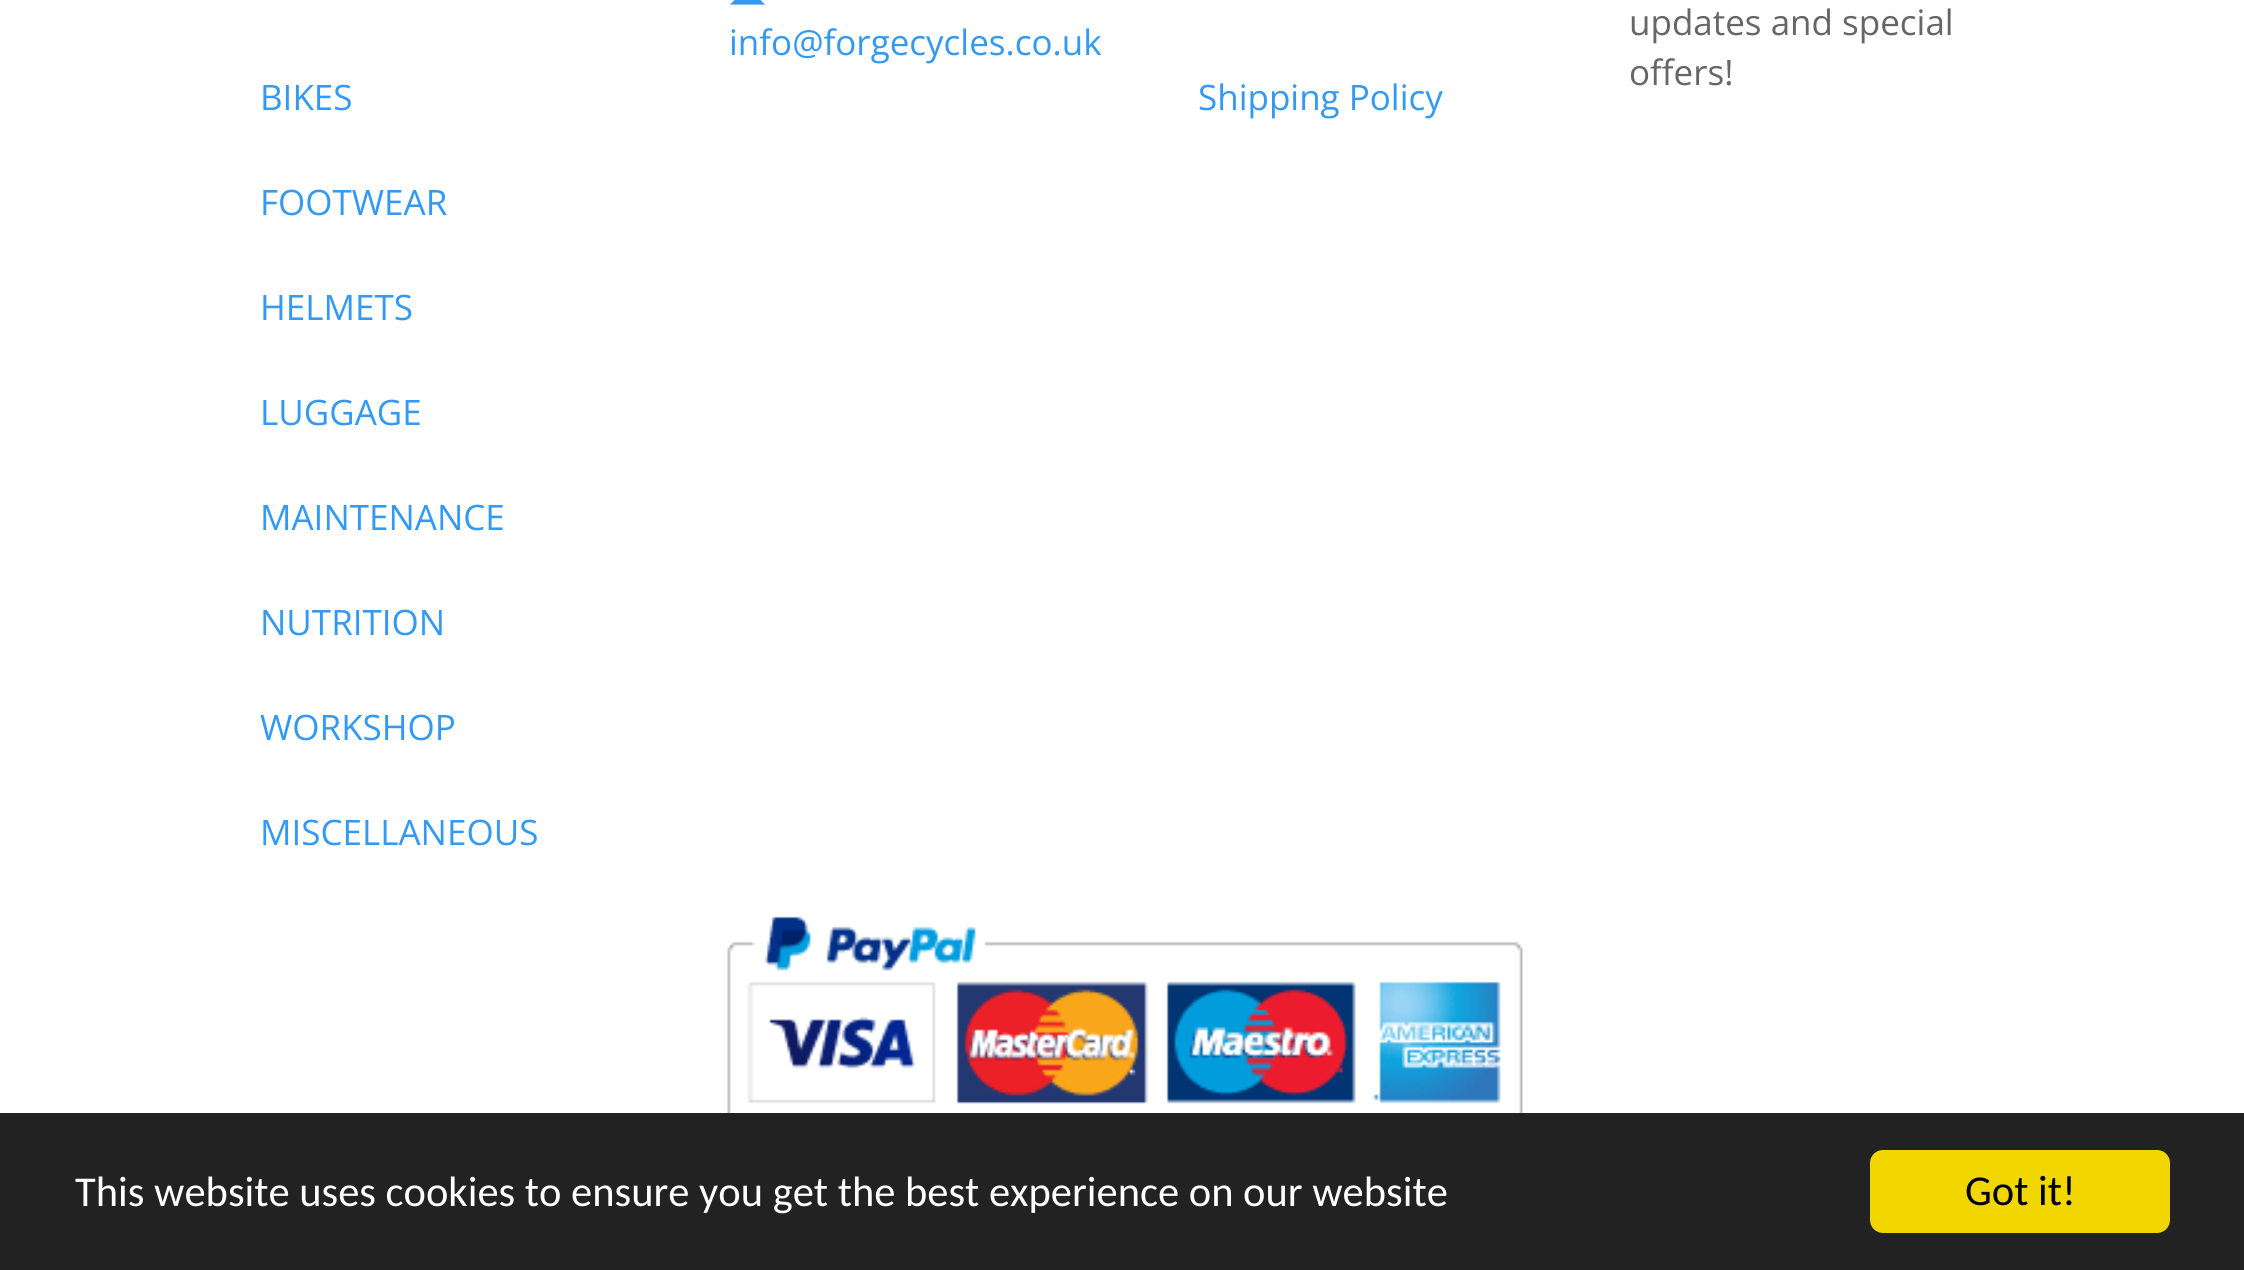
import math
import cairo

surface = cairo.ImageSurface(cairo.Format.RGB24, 2244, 1270)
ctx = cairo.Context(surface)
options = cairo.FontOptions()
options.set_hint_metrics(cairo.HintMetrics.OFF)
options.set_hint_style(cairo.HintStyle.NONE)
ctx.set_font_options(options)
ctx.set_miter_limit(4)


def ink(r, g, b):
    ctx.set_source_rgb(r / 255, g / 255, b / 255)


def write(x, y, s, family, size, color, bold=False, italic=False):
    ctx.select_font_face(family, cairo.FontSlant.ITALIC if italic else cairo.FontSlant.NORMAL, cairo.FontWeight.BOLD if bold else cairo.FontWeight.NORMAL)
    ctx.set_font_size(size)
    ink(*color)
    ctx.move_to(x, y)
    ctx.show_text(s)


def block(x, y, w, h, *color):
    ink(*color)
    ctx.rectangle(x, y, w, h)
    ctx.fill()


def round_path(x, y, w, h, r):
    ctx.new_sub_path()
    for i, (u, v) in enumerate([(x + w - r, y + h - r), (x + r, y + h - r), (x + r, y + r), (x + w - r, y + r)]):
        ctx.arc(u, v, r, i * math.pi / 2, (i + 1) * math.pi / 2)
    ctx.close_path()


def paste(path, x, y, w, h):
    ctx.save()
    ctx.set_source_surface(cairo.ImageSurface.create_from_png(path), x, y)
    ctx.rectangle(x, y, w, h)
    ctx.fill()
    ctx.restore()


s1 = dict(family="Open Sans", size=35, color=(51, 153, 243))
s2 = dict(family="Open Sans", size=35, color=(102, 102, 102))
s3 = dict(family="Carlito", size=42.5, color=(255, 255, 255))
s4 = dict(family="Carlito", size=42.5, color=(0, 0, 0))

ink(255, 255, 255)
ctx.paint()
paste("pic1.png", 730, 0, 35, 5)
write(729, 55, "info@forgecycles.co.uk", **s1)
write(1629, 35, "updates and special", **s2)
write(1629, 85, "offers!", **s2)
write(260, 110, "BIKES", **s1)
write(260, 215, "FOOTWEAR", **s1)
write(260, 320, "HELMETS", **s1)
write(260, 425, "LUGGAGE", **s1)
write(260, 530, "MAINTENANCE", **s1)
write(260, 635, "NUTRITION", **s1)
write(260, 740, "WORKSHOP", **s1)
write(260, 845, "MISCELLANEOUS", **s1)
write(1198, 110, "Shipping Policy", **s1)
paste("pic2.png", 727, 916, 796, 197)
block(0, 1113, 2244, 157, 34, 34, 34)
write(75, 1206, "This website uses cookies to ensure you get the best experience on our website", **s3)
ink(241, 214, 0)
round_path(1870, 1150, 300, 83, 13)
ctx.fill()
write(1965, 1205, "Got it!", **s4)
surface.write_to_png("screenshot.png")
